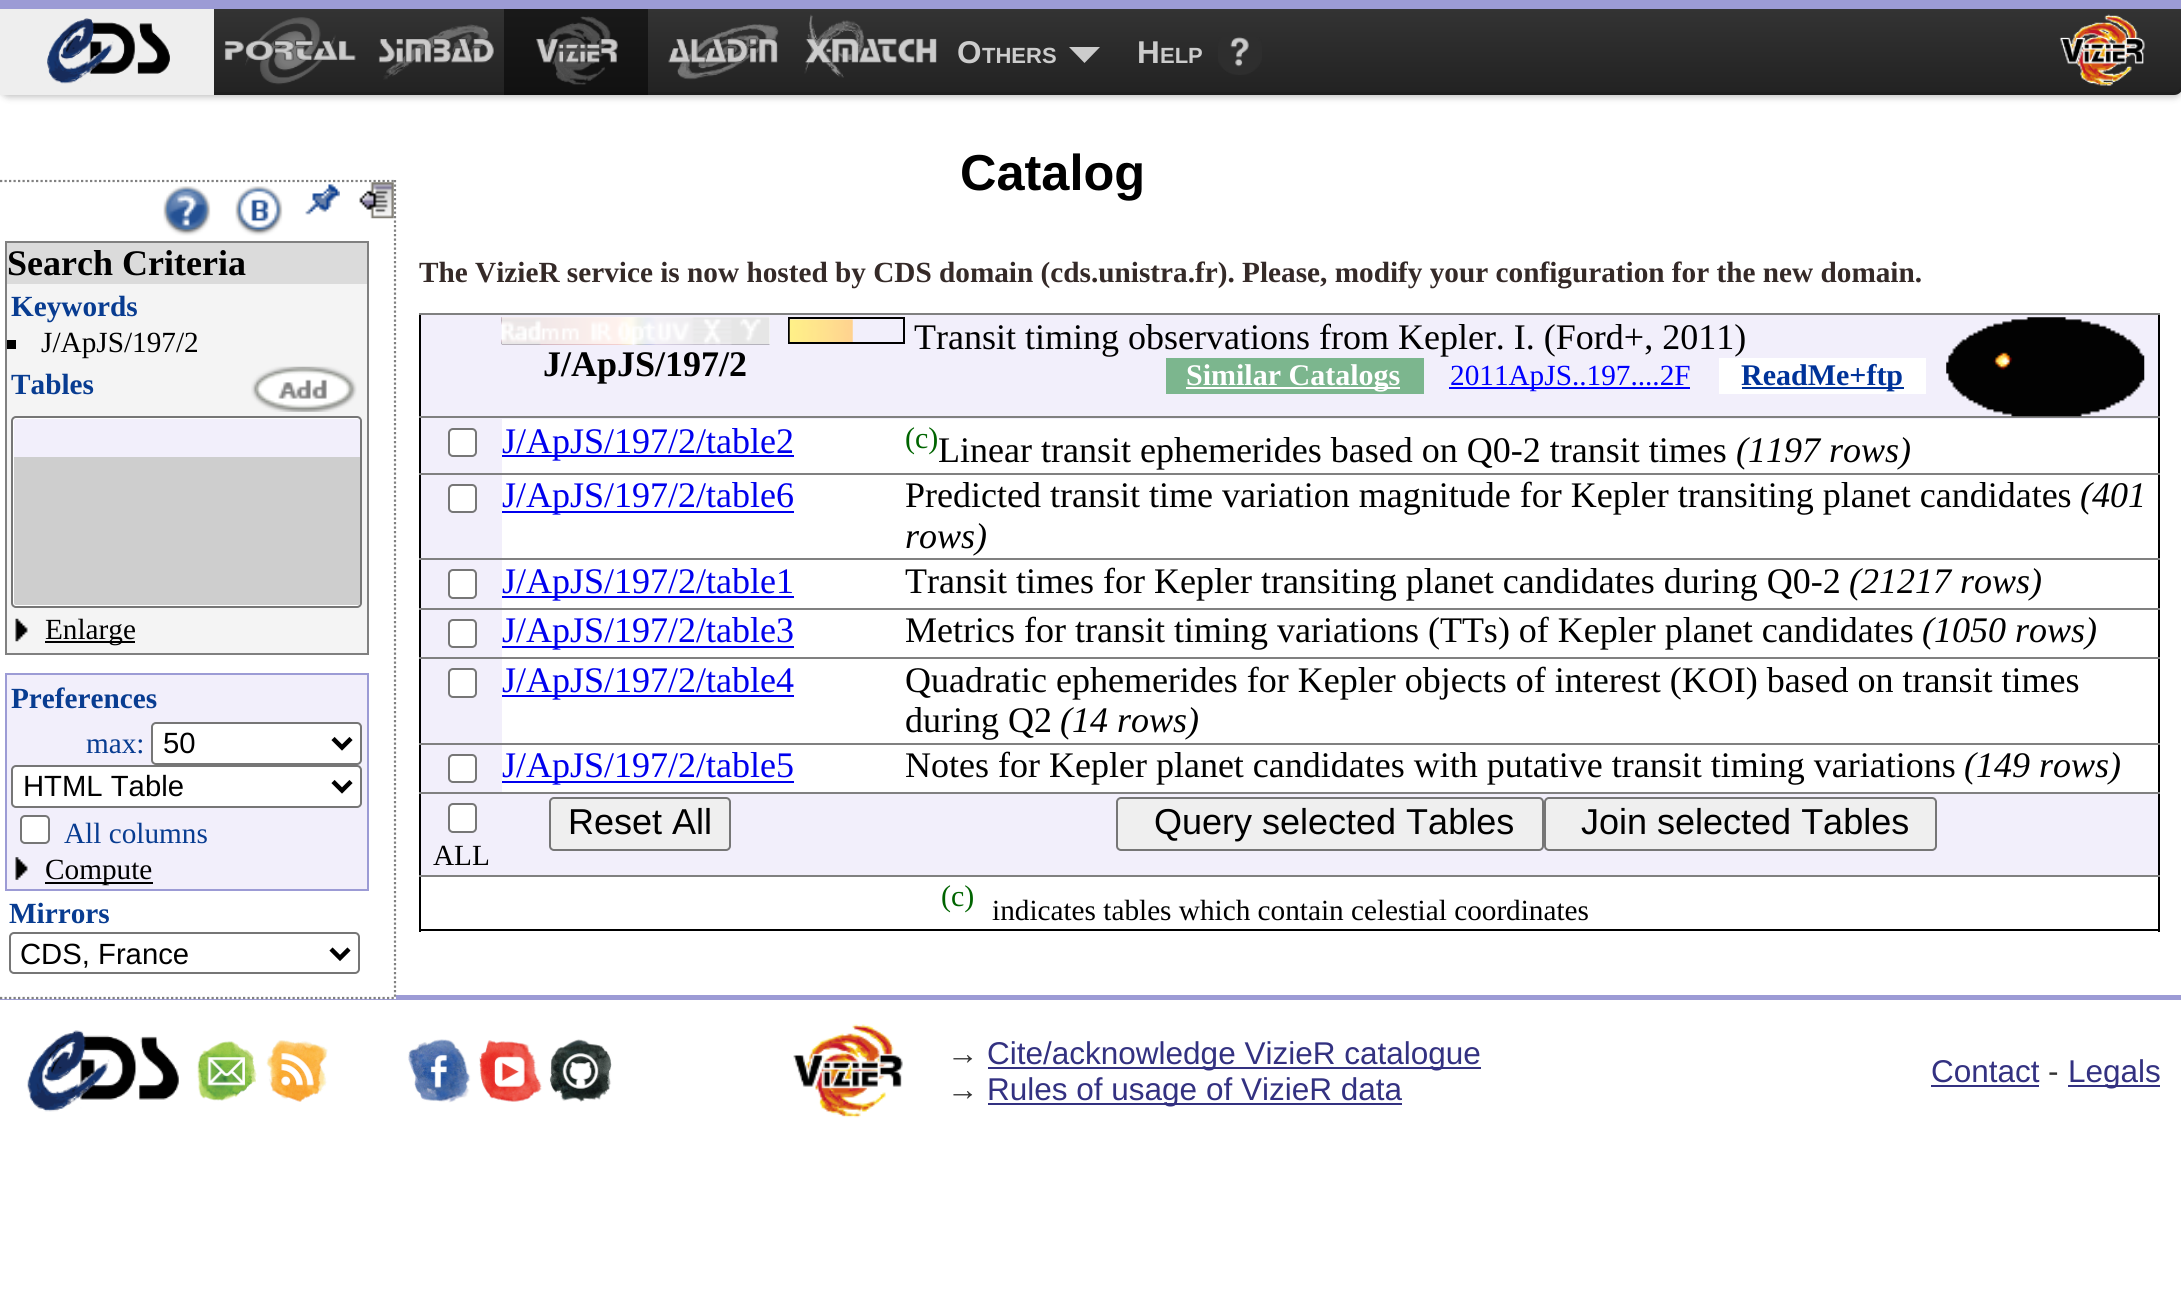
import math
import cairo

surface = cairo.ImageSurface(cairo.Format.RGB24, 2181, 1308)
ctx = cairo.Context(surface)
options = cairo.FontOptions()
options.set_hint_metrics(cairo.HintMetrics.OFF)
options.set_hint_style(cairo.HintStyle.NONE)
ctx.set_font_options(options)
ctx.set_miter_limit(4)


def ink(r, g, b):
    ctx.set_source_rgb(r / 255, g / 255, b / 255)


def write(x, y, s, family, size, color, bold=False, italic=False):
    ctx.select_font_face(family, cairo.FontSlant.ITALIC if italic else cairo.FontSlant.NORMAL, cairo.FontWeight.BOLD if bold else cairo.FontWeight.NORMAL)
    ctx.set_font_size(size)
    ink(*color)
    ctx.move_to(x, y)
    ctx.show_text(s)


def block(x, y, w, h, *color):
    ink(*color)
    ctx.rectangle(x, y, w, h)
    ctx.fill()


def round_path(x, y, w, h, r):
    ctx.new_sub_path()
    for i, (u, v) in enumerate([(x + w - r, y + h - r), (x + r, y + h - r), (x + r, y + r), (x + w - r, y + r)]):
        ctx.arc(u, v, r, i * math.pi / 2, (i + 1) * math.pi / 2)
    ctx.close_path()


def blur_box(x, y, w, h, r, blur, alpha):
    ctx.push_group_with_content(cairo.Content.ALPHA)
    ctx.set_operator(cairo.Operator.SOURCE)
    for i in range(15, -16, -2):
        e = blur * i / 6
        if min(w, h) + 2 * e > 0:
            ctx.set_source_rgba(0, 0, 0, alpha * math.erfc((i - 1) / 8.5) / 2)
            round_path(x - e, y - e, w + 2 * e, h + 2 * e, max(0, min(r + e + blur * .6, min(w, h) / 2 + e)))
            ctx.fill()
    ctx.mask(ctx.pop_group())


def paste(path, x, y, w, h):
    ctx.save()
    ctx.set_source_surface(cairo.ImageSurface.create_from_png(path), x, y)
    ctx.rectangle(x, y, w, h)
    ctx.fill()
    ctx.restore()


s1 = dict(family="Liberation Sans", size=31.5, color=(204, 204, 204), bold=True)
s2 = dict(family="Liberation Sans", size=22, color=(204, 204, 204), bold=True)
s3 = dict(family="Liberation Sans", size=50.5, color=(0, 0, 0), bold=True)
s4 = dict(family="Liberation Serif", size=36, color=(0, 0, 0), bold=True)
s5 = dict(family="Liberation Serif", size=29.25, color=(8, 60, 145), bold=True)
s6 = dict(family="Liberation Serif", size=29.25, color=(0, 0, 0))
s7 = dict(family="Liberation Serif", size=29.25, color=(8, 60, 145))
s8 = dict(family="Liberation Sans", size=29.25, color=(0, 0, 0))
s9 = dict(family="Liberation Serif", size=29.25, color=(53, 42, 40), bold=True)
s10 = dict(family="Liberation Serif", size=36, color=(0, 0, 0))
s11 = dict(family="Liberation Serif", size=30, color=(255, 255, 255), bold=True)
s12 = dict(family="Liberation Serif", size=29.25, color=(0, 0, 255))
s13 = dict(family="Liberation Serif", size=30, color=(0, 51, 153), bold=True)
s14 = dict(family="Liberation Serif", size=36, color=(0, 0, 238))
s15 = dict(family="Liberation Serif", size=30, color=(0, 100, 0))
s16 = dict(family="Liberation Serif", size=36, color=(0, 0, 0), italic=True)
s17 = dict(family="Liberation Sans", size=36, color=(0, 0, 0))
s18 = dict(family="Liberation Sans", size=31.5, color=(51, 51, 51))
s19 = dict(family="Liberation Sans", size=31.5, color=(51, 49, 129))

ink(255, 255, 255)
ctx.paint()
ink(0, 0, 0)
blur_box(0, 2, 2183, 95, 9, 3.5, 0.25)
gradient = cairo.LinearGradient(1091, 9, 1091, 95)
gradient.add_color_stop_rgba(0, 0.2, 0.2, 0.2, 1)
gradient.add_color_stop_rgba(1, 0.133, 0.133, 0.133, 1)
ctx.set_source(gradient)
ctx.new_path()
ctx.move_to(0, 9)
ctx.line_to(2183, 9)
ctx.line_to(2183, 86)
ctx.curve_to(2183, 91, 2179, 95, 2174, 95)
ctx.line_to(9, 95)
ctx.curve_to(4, 95, 0, 91, 0, 86)
ctx.close_path()
ctx.fill()
ctx.set_source_rgba(0, 0, 0, 0.1)
ctx.new_path()
ctx.move_to(0, 83)
ctx.line_to(0, 86)
ctx.curve_to(0, 91, 4, 95, 9, 95)
ctx.line_to(2174, 95)
ctx.curve_to(2179, 95, 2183, 91, 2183, 86)
ctx.line_to(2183, 9)
ctx.line_to(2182, 9)
ctx.line_to(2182, 83)
ctx.curve_to(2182, 88, 2178, 92, 2173, 92)
ctx.line_to(9, 92)
ctx.curve_to(4, 92, 0, 88, 0, 83)
ctx.close_path()
ctx.fill()
block(0, 0, 2181, 9, 156, 155, 213)
block(0, 9, 214, 86, 238, 238, 238)
paste("pic1.png", 47, 18, 123, 66)
paste("pic2.png", 245, 17, 91, 68)
paste("pic3.png", 224, 40, 132, 21)
paste("pic4.png", 383, 24, 106, 56)
paste("pic5.png", 378, 38, 116, 26)
ctx.set_source_rgba(0, 0, 0, 0.5)
ctx.rectangle(504, 9, 144, 86)
ctx.fill()
paste("pic6.png", 545, 16, 66, 69)
paste("pic7.png", 536, 38, 82, 25)
paste("pic8.png", 677, 24, 102, 56)
paste("pic9.png", 668, 38, 110, 26)
paste("pic10.png", 804, 14, 60, 64)
paste("pic11.png", 805, 38, 132, 26)
write(957, 63, "O", **s1)
write(982, 63, "THERS", **s2)
ctx.new_path()
ctx.move_to(1069, 47)
ctx.line_to(1100, 47)
ctx.line_to(1084.5, 63)
ctx.close_path()
ctx.fill()
write(1137, 63, "H", **s1)
write(1160, 63, "ELP", **s2)
paste("pic12.png", 1218, 37, 44, 38)
paste("pic13.png", 2059, 14, 86, 72)
write(960, 190, "Catalog", **s3)
block(0, 995, 2181, 5, 156, 155, 213)
block(0, 995, 396, 4, 255, 255, 255)
ctx.new_path()
ctx.move_to(0, 181)
ctx.line_to(396, 181)
ink(128, 128, 128)
ctx.set_line_width(2.2)
ctx.set_dash([2.25, 2.25])
ctx.stroke()
ctx.new_path()
ctx.move_to(395, 180)
ctx.line_to(395, 999)
ctx.stroke()
ctx.new_path()
ctx.move_to(0, 998)
ctx.line_to(396, 998)
ctx.stroke()
paste("pic14.png", 163, 186, 48, 50)
paste("pic15.png", 235, 186, 48, 50)
paste("pic16.png", 305, 184, 35, 31)
paste("pic17.png", 359, 182, 35, 37)
block(7, 284, 360, 369, 244, 244, 244)
ctx.rectangle(6, 242, 362, 412)
ink(128, 128, 128)
ctx.set_line_width(2)
ctx.set_dash([])
ctx.stroke()
block(7, 243, 360, 41, 219, 219, 219)
write(7, 275, "Search Criteria", **s4)
write(11, 316, "Keywords", **s5)
block(7, 340, 9, 9, 0, 0, 0)
write(41, 352, "J/ApJS/197/2", **s6)
write(11, 394, "Tables", **s5)
paste("pic18.png", 251, 366, 106, 46)
ink(255, 255, 255)
round_path(12, 417, 349, 190, 4)
ctx.fill_preserve()
ink(118, 118, 118)
ctx.stroke()
ink(242, 239, 251)
ctx.new_path()
ctx.move_to(16, 419)
ctx.line_to(358, 419)
ctx.curve_to(359, 419, 360, 420, 360, 421)
ctx.line_to(360, 457)
ctx.line_to(14, 457)
ctx.line_to(14, 421)
ctx.curve_to(14, 420, 15, 419, 16, 419)
ctx.close_path()
ctx.fill()
block(14, 457, 346, 112, 206, 206, 206)
ctx.new_path()
ctx.move_to(14, 569)
ctx.line_to(360, 569)
ctx.line_to(360, 603)
ctx.curve_to(360, 604, 359, 605, 358, 605)
ctx.line_to(16, 605)
ctx.curve_to(15, 605, 14, 604, 14, 603)
ctx.close_path()
ctx.fill()
paste("pic19.png", 15, 618, 13, 24)
block(45, 641, 90, 2, 0, 0, 0)
write(45, 639, "Enlarge", **s6)
ink(242, 239, 251)
ctx.rectangle(6, 674, 362, 216)
ctx.fill_preserve()
ink(156, 155, 213)
ctx.stroke()
write(11, 708, "Preferences", **s5)
write(86, 753, "max:", **s7)
ink(255, 255, 255)
round_path(152, 723, 209, 41, 4)
ctx.fill_preserve()
ink(118, 118, 118)
ctx.stroke()
ctx.new_path()
ctx.move_to(333, 738.5)
ctx.line_to(342, 747.5)
ctx.line_to(351, 738.5)
ink(0, 0, 0)
ctx.set_line_width(4.5)
ctx.stroke()
write(163, 753, "50", **s8)
ink(255, 255, 255)
round_path(12, 766, 349, 41, 4)
ctx.fill_preserve()
ink(118, 118, 118)
ctx.set_line_width(2)
ctx.stroke()
ctx.new_path()
ctx.move_to(333, 781.5)
ctx.line_to(342, 790.5)
ctx.line_to(351, 781.5)
ink(0, 0, 0)
ctx.set_line_width(4.5)
ctx.stroke()
write(23, 796, "HTML Table", **s8)
ink(255, 255, 255)
round_path(21, 816, 28, 27, 4)
ctx.fill_preserve()
ink(118, 118, 118)
ctx.set_line_width(2)
ctx.stroke()
write(64, 843, "All columns", **s7)
paste("pic20.png", 15, 857, 13, 23)
block(45, 882, 108, 2, 0, 0, 0)
write(45, 879, "Compute", **s6)
write(9, 923, "Mirrors", **s5)
round_path(10, 933, 349, 40, 4)
ink(118, 118, 118)
ctx.stroke()
ctx.new_path()
ctx.move_to(331, 949)
ctx.line_to(340, 958)
ctx.line_to(349, 949)
ink(0, 0, 0)
ctx.set_line_width(4.5)
ctx.stroke()
write(20, 964, "CDS, France", **s8)
write(419, 282, "The VizieR service is now hosted by CDS domain (cds.unistra.fr). Please, modify your configuration for the new domain.", **s9)
block(2158, 313, 2, 619, 0, 0, 0)
block(419, 929, 1741, 2, 0, 0, 0)
block(419, 313, 2, 619, 0, 0, 0)
block(419, 313, 1741, 2, 128, 128, 128)
block(421, 315, 1737, 104, 242, 239, 251)
block(419, 416, 1741, 2, 128, 128, 128)
paste("pic21.png", 1946, 317, 199, 100)
paste("pic22.png", 501, 317, 269, 28)
ctx.set_source_rgba(1, 1, 1, 0.9)
ctx.rectangle(502, 317, 38, 27)
ctx.fill()
ctx.rectangle(540, 317, 38, 27)
ctx.fill()
ctx.rectangle(578, 317, 39, 27)
ctx.fill()
ctx.rectangle(617, 317, 38, 27)
ctx.fill()
ctx.rectangle(655, 317, 38, 27)
ctx.fill()
ctx.rectangle(693, 317, 38, 27)
ctx.fill()
ctx.rectangle(731, 317, 39, 27)
ctx.fill()
write(543, 376, "J/ApJS/197/2", **s4)
ctx.rectangle(789, 318, 115, 25)
ctx.set_line_width(2)
ctx.stroke()
paste("pic23.png", 789, 319, 64, 23)
write(914, 349, "Transit timing observations from Kepler. I. (Ford+, 2011)", **s10)
block(1166, 358, 258, 36, 124, 182, 142)
block(1186, 387, 214, 2, 255, 255, 255)
write(1186, 385, "Similar Catalogs", **s11)
block(1449, 387, 241, 2, 0, 0, 255)
write(1450, 385, "2011ApJS..197....2F", **s12)
block(1719, 358, 207, 36, 255, 255, 255)
block(1742, 387, 162, 2, 0, 51, 153)
write(1741, 385, "ReadMe+ftp", **s13)
block(421, 419, 81, 54, 242, 239, 251)
ink(255, 255, 255)
round_path(449, 429, 27, 27, 4)
ctx.fill_preserve()
ink(118, 118, 118)
ctx.stroke()
block(502, 455, 292, 2, 0, 0, 238)
write(502, 453, "J/ApJS/197/2/table2", **s14)
write(905, 448, "(c)", **s15)
write(938, 462, "Linear transit ephemerides based on Q0-2 transit times", **s10)
write(1736, 462, "(1197 rows)", **s16)
block(421, 475, 81, 83, 242, 239, 251)
ink(255, 255, 255)
round_path(449, 485, 27, 27, 4)
ctx.fill_preserve()
ink(118, 118, 118)
ctx.stroke()
block(502, 511, 292, 2, 0, 0, 238)
write(502, 507, "J/ApJS/197/2/table6", **s14)
block(419, 473, 1741, 2, 128, 128, 128)
write(905, 507, "Predicted transit time variation magnitude for Kepler transiting planet candidates", **s10)
write(2080, 507, "(401", **s16)
write(905, 548, "rows)", **s16)
block(421, 560, 81, 48, 242, 239, 251)
ink(255, 255, 255)
round_path(449, 570, 27, 28, 4)
ctx.fill_preserve()
ink(118, 118, 118)
ctx.stroke()
block(502, 596, 292, 2, 0, 0, 238)
write(502, 593, "J/ApJS/197/2/table1", **s14)
block(419, 558, 1741, 2, 128, 128, 128)
write(905, 593, "Transit times for Kepler transiting planet candidates during Q0-2", **s10)
write(1849, 593, "(21217 rows)", **s16)
block(421, 610, 81, 47, 242, 239, 251)
ink(255, 255, 255)
round_path(449, 620, 27, 27, 4)
ctx.fill_preserve()
ink(118, 118, 118)
ctx.stroke()
block(502, 646, 292, 2, 0, 0, 238)
write(502, 642, "J/ApJS/197/2/table3", **s14)
block(419, 608, 1741, 2, 128, 128, 128)
write(905, 642, "Metrics for transit timing variations (TTs) of Kepler planet candidates", **s10)
write(1922, 642, "(1050 rows)", **s16)
block(421, 659, 81, 84, 242, 239, 251)
ink(255, 255, 255)
round_path(449, 669, 27, 28, 4)
ctx.fill_preserve()
ink(118, 118, 118)
ctx.stroke()
block(502, 695, 292, 2, 0, 0, 238)
write(502, 692, "J/ApJS/197/2/table4", **s14)
block(419, 657, 1741, 2, 128, 128, 128)
write(905, 692, "Quadratic ephemerides for Kepler objects of interest (KOI) based on transit times", **s10)
write(905, 732, "during Q2", **s10)
write(1060, 732, "(14 rows)", **s16)
block(421, 745, 81, 47, 242, 239, 251)
ink(255, 255, 255)
round_path(449, 755, 27, 27, 4)
ctx.fill_preserve()
ink(118, 118, 118)
ctx.stroke()
block(502, 781, 292, 2, 0, 0, 238)
write(502, 777, "J/ApJS/197/2/table5", **s14)
block(419, 743, 1741, 2, 128, 128, 128)
write(905, 777, "Notes for Kepler planet candidates with putative transit timing variations", **s10)
write(1964, 777, "(149 rows)", **s16)
block(421, 794, 1737, 81, 242, 239, 251)
ink(239, 239, 239)
round_path(550, 798, 180, 52, 4)
ctx.fill_preserve()
ink(118, 118, 118)
ctx.stroke()
write(568, 834, "Reset All", **s17)
block(419, 792, 1741, 2, 128, 128, 128)
ink(239, 239, 239)
round_path(1117, 798, 426, 52, 4)
ctx.fill_preserve()
ink(118, 118, 118)
ctx.stroke()
write(1154, 834, "Query selected Tables", **s17)
ink(239, 239, 239)
round_path(1545, 798, 391, 52, 4)
ctx.fill_preserve()
ink(118, 118, 118)
ctx.stroke()
write(1581, 834, "Join selected Tables", **s17)
ink(255, 255, 255)
round_path(449, 804, 27, 28, 4)
ctx.fill_preserve()
ink(118, 118, 118)
ctx.stroke()
write(433, 865, "ALL", **s6)
block(419, 875, 1741, 2, 128, 128, 128)
write(941, 906, "(c)", **s15)
write(992, 920, "indicates tables which contain celestial coordinates", **s6)
paste("pic24.png", 27, 1030, 152, 82)
paste("pic25.png", 197, 1041, 60, 60)
paste("pic26.png", 266, 1040, 62, 62)
paste("pic27.png", 408, 1039, 63, 64)
paste("pic28.png", 479, 1040, 63, 62)
paste("pic29.png", 549, 1039, 63, 63)
paste("pic30.png", 793, 1024, 110, 94)
write(947, 1064, "→", **s18)
block(988, 1067, 493, 2, 51, 49, 129)
write(987, 1064, "Cite/acknowledge VizieR catalogue", **s19)
write(947, 1100, "→", **s18)
block(988, 1103, 414, 2, 51, 49, 129)
write(987, 1100, "Rules of usage of VizieR data", **s19)
write(1931, 1082, "Contact", **s19)
block(1931, 1085, 108, 2, 51, 49, 129)
write(2048, 1082, "-", **s18)
block(2068, 1085, 92, 2, 51, 49, 129)
write(2068, 1082, "Legals", **s19)
surface.write_to_png("screenshot.png")
